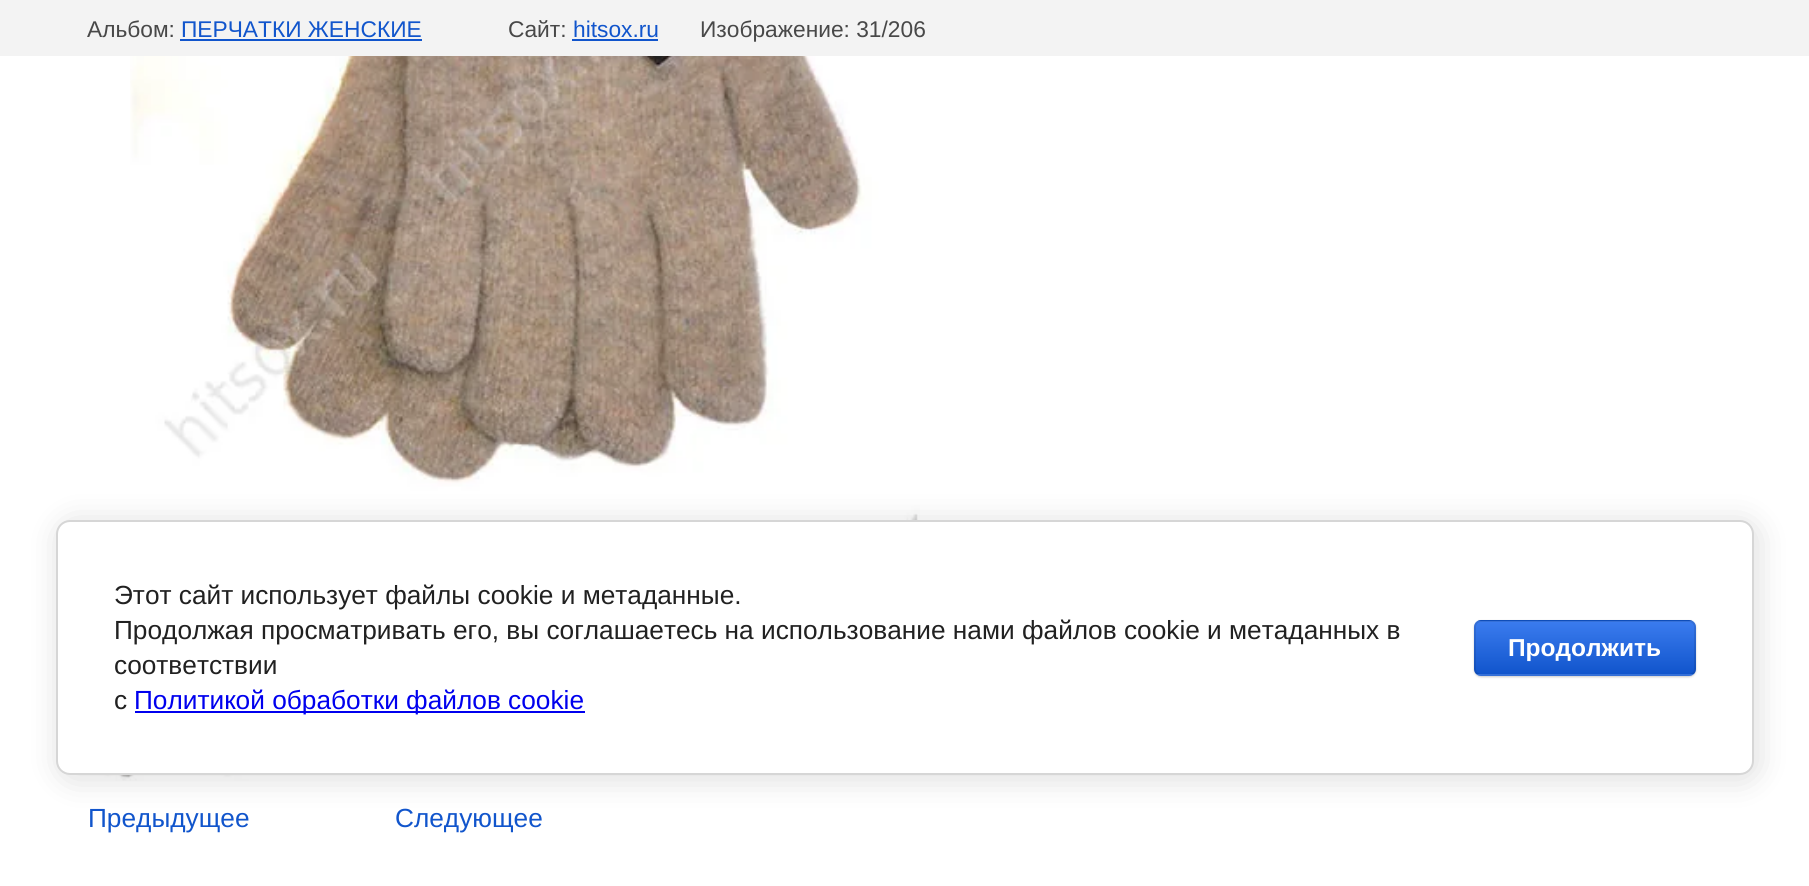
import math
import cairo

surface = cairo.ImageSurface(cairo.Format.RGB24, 1809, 886)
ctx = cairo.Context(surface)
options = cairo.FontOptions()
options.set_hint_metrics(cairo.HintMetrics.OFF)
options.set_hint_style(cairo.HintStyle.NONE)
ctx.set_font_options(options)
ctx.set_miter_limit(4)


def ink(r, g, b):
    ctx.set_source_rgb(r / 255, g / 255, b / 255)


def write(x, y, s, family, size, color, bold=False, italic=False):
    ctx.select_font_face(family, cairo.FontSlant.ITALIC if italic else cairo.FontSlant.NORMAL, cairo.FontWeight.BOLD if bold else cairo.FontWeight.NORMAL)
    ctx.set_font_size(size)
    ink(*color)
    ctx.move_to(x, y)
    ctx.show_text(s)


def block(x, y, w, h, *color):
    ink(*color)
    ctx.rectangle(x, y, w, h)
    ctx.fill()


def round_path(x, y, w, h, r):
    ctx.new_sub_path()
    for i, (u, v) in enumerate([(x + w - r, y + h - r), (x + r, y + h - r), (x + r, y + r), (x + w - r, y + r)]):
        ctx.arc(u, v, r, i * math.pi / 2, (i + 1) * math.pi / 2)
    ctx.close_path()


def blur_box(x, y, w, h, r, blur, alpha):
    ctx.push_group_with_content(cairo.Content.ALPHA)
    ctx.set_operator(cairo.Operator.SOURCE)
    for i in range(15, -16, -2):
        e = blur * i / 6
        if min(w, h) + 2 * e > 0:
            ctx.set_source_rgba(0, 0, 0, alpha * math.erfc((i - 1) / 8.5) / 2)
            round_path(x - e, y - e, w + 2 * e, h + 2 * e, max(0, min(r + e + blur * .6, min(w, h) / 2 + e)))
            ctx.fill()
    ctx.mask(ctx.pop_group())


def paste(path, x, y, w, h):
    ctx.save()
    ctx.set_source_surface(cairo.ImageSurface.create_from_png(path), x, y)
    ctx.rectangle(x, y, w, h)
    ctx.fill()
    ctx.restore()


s1 = dict(family="Liberation Sans", size=22.75, color=(72, 72, 72))
s2 = dict(family="Liberation Sans", size=22.75, color=(17, 85, 204))
s3 = dict(family="Liberation Sans", size=26.25, color=(17, 85, 204))
s4 = dict(family="Liberation Sans", size=26.25, color=(33, 33, 33))
s5 = dict(family="Liberation Sans", size=26.25, color=(0, 0, 238))
s6 = dict(family="Liberation Sans", size=24.5, color=(255, 255, 255), bold=True)

ink(255, 255, 255)
ctx.paint()
block(0, 0, 1809, 56, 243, 243, 243)
write(87, 37, "Альбом:", **s1)
write(181, 37, "ПЕРЧАТКИ ЖЕНСКИЕ", **s2)
block(180, 39, 242, 2, 17, 85, 204)
write(508, 37, "Сайт:", **s1)
write(573, 37, "hitsox.ru", **s2)
block(572, 39, 86, 2, 17, 85, 204)
write(700, 37, "Изображение: 31/206", **s1)
paste("pic1.png", 130, 56, 790, 464)
paste("pic2.png", 88, 775, 210, 6)
write(88, 827, "Предыдущее", **s3)
write(395, 827, "Следующее", **s3)
ink(0, 0, 0)
blur_box(60, 523, 1697, 256, 14, 16, 0.14)
ink(255, 255, 255)
round_path(57, 521, 1696, 253, 13)
ctx.fill_preserve()
ink(214, 214, 214)
ctx.stroke()
write(114, 604, "Этот сайт использует файлы cookie и метаданные.", **s4)
write(114, 639, "Продолжая просматривать его, вы соглашаетесь на использование нами файлов cookie и метаданных в", **s4)
write(114, 674, "соответствии", **s4)
write(114, 709, "с", **s4)
block(135, 711, 450, 2, 0, 0, 238)
write(134, 709, "Политикой обработки файлов cookie", **s5)
ink(0, 0, 0)
blur_box(1474, 621, 222, 56, 7, 1, 0.2)
ctx.save()
round_path(1474, 620, 222, 56, 7)
ctx.clip()
gradient = cairo.LinearGradient(1585, 569, 1585, 621)
gradient.add_color_stop_rgba(0, 0.231, 0.486, 0.937, 1)
gradient.add_color_stop_rgba(1, 0.067, 0.333, 0.8, 1)
ctx.set_source(gradient)
ctx.rectangle(1474, 620, 222, 1)
ctx.fill()
gradient = cairo.LinearGradient(1585, 621, 1585, 674)
gradient.add_color_stop_rgba(0, 0.231, 0.486, 0.937, 1)
gradient.add_color_stop_rgba(1, 0.067, 0.333, 0.8, 1)
ctx.set_source(gradient)
ctx.rectangle(1474, 621, 222, 53)
ctx.fill()
gradient = cairo.LinearGradient(1585, 674, 1585, 726)
gradient.add_color_stop_rgba(0, 0.231, 0.486, 0.937, 1)
gradient.add_color_stop_rgba(1, 0.067, 0.333, 0.8, 1)
ctx.set_source(gradient)
ctx.rectangle(1474, 674, 222, 2)
ctx.fill()
ctx.restore()
round_path(1475, 621, 220, 54, 6)
ctx.set_source_rgba(0, 0, 0, 0.1)
ctx.stroke()
write(1508, 656, "Продолжить", **s6)
surface.write_to_png("screenshot.png")
